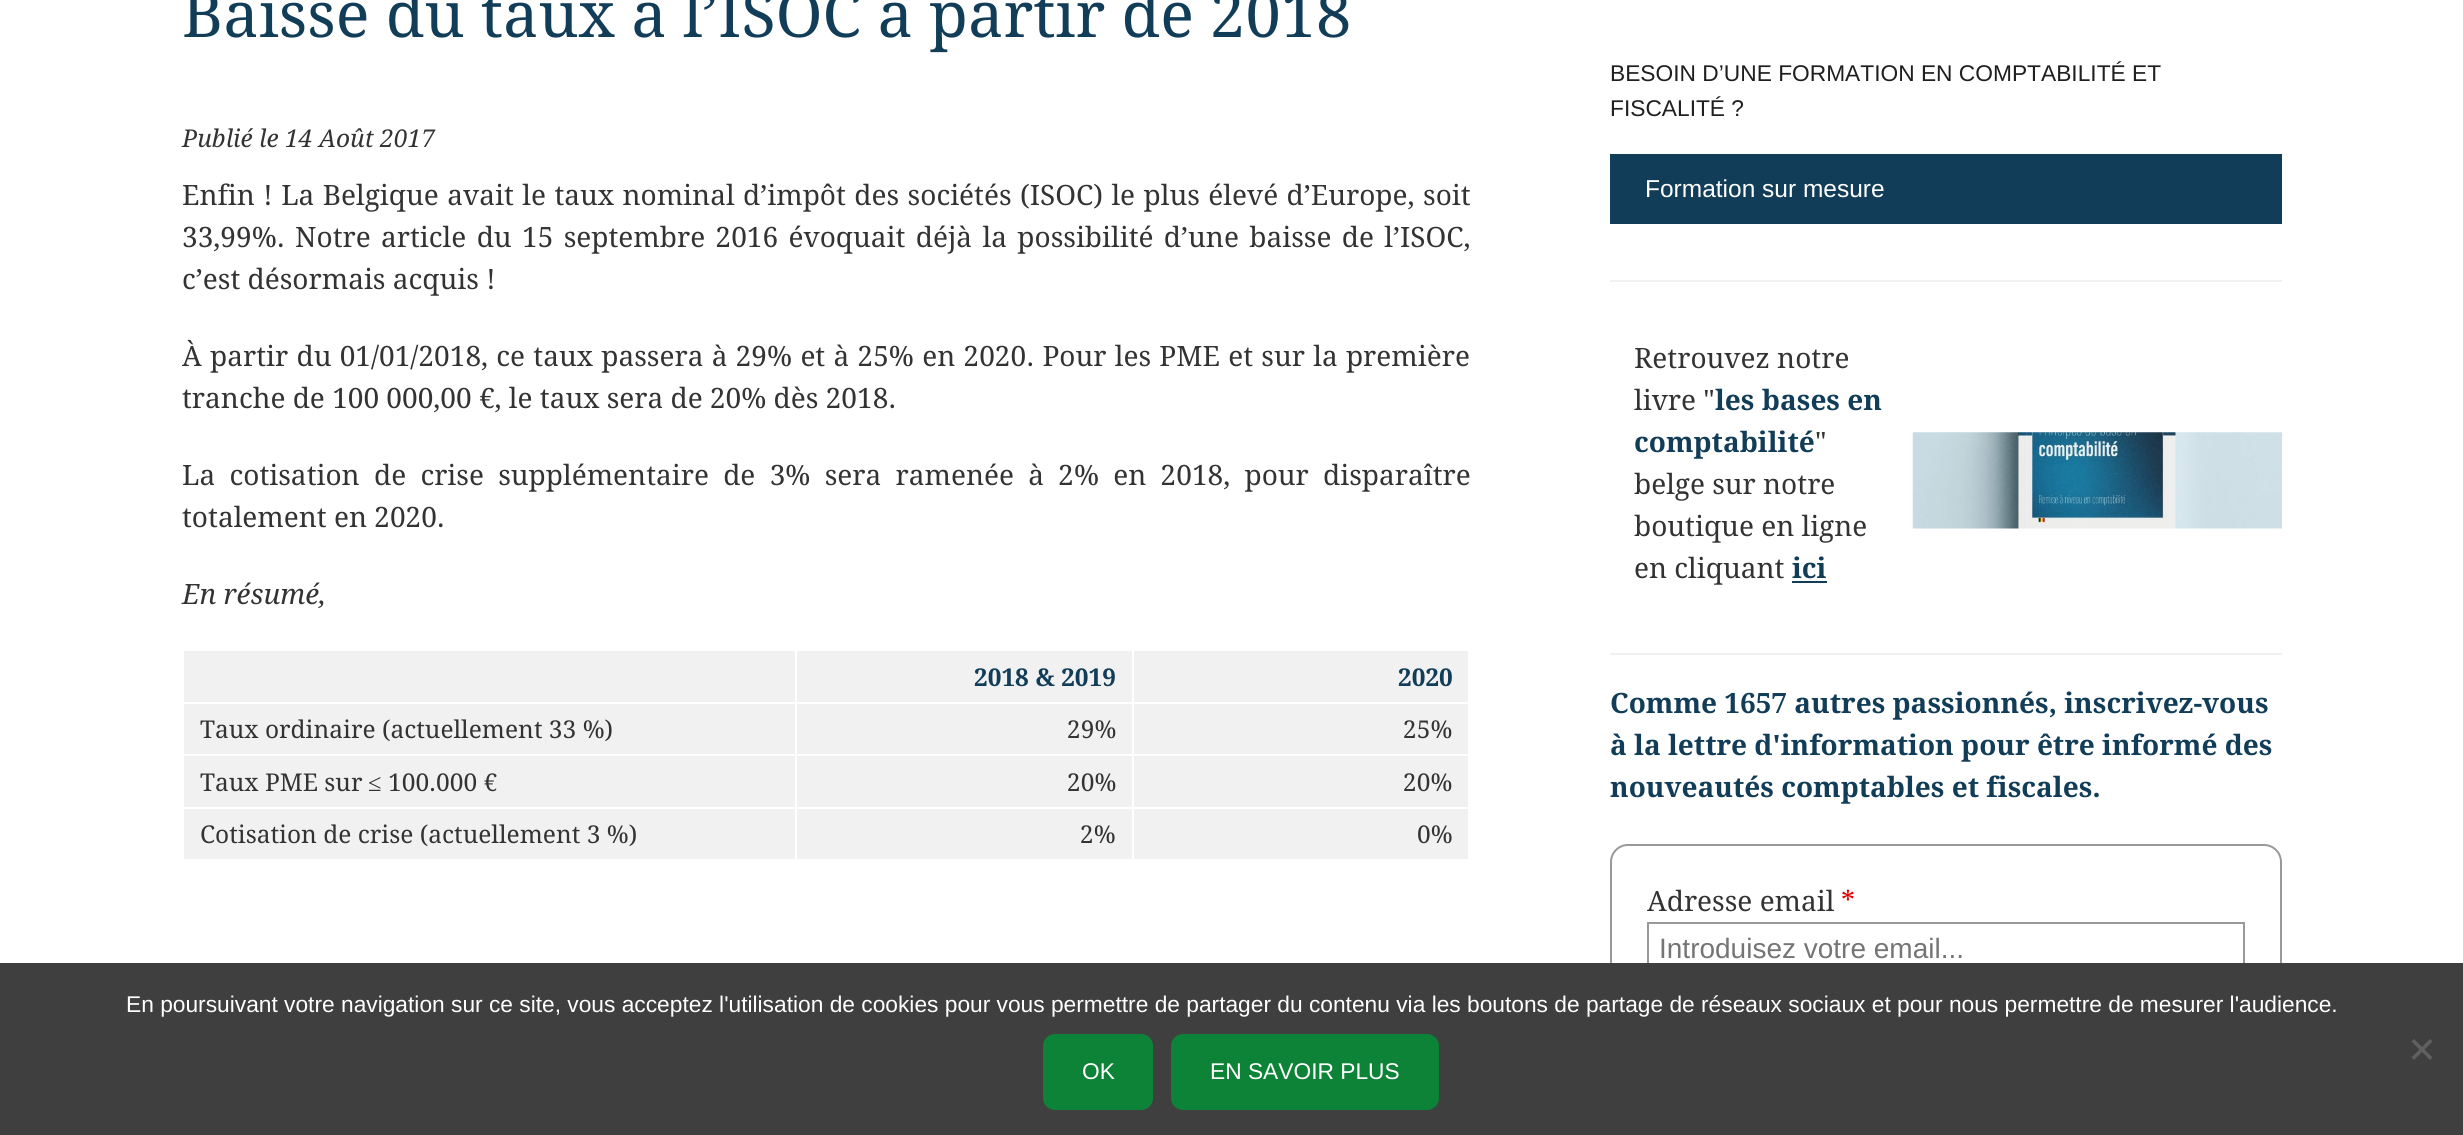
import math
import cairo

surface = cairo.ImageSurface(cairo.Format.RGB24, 2463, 1135)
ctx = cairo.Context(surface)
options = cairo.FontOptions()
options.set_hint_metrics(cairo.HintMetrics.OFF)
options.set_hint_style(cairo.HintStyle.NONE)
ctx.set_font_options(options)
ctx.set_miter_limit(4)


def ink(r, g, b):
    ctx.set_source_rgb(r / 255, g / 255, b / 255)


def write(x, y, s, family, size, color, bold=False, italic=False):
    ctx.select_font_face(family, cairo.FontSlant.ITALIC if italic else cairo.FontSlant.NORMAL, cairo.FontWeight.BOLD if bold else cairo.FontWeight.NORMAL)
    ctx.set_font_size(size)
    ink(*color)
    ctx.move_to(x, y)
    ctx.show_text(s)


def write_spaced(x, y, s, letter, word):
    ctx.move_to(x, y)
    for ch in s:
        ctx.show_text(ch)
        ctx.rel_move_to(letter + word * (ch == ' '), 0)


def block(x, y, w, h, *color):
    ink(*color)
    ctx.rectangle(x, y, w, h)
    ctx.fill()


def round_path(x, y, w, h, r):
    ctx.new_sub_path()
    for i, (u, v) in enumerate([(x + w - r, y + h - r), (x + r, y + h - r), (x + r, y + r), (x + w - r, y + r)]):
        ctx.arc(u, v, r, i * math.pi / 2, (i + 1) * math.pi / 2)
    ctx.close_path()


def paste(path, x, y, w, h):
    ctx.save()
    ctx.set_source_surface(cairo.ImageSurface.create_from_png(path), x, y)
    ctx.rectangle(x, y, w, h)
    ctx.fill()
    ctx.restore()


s1 = dict(family="Droid Serif", size=63, color=(18, 61, 88))
s2 = dict(family="Droid Serif", size=24.5, color=(51, 51, 51), italic=True)
s3 = dict(family="Droid Serif", size=28, color=(51, 51, 51))
s4 = dict(family="Droid Serif", size=28, color=(51, 51, 51), italic=True)
s5 = dict(family="Droid Serif", size=24.5, color=(18, 61, 88), bold=True)
s6 = dict(family="Droid Serif", size=24.5, color=(51, 51, 51))
s7 = dict(family="Liberation Serif", size=24.5, color=(51, 51, 51))
s8 = dict(family="Liberation Sans", size=22.75, color=(31, 31, 31))
s9 = dict(family="Liberation Sans", size=24.5, color=(255, 255, 255))
s10 = dict(family="Droid Serif", size=28, color=(18, 61, 88), bold=True)
s11 = dict(family="Droid Serif", size=28, color=(221, 0, 0))
s12 = dict(family="Liberation Sans", size=28, color=(117, 117, 117))
s13 = dict(family="Liberation Sans", size=22.75, color=(255, 255, 255))

ink(255, 255, 255)
ctx.paint()
write(182, 37, "Baisse du taux à l’ISOC à partir de 2018", **s1)
write(182, 147, "Publié le 14 Août 2017", **s2)
ctx.select_font_face("Droid Serif")
ctx.set_font_size(28)
write_spaced(182, 205, "Enfin ! La Belgique avait le taux nominal d’impôt des sociétés (ISOC) le plus élevé d’Europe, soit", 0, 1.2)
write_spaced(182, 247, "33,99%. Notre article du 15 septembre 2016 évoquait déjà la possibilité d’une baisse de l’ISOC,", 0, 3.1)
write(182, 289, "c’est désormais acquis !", **s3)
write_spaced(182, 366, "À partir du 01/01/2018, ce taux passera à 29% et à 25% en 2020. Pour les PME et sur la première", 0, 1)
write(182, 408, "tranche de 100 000,00 €, le taux sera de 20% dès 2018.", **s3)
write_spaced(182, 485, "La cotisation de crise supplémentaire de 3% sera ramenée à 2% en 2018, pour disparaître", 0, 7)
write(182, 527, "totalement en 2020.", **s3)
write(182, 604, "En résumé,", **s4)
block(184, 651, 1284, 51, 241, 241, 241)
write(974, 686, "2018 & 2019", **s5)
write(1398, 686, "2020", **s5)
block(184, 704, 1284, 50, 241, 241, 241)
write(200, 738, "Taux ordinaire (actuellement 33 %)", **s6)
write(1067, 738, "29%", **s6)
write(1403, 738, "25%", **s6)
block(184, 756, 1284, 51, 241, 241, 241)
write(200, 791, "Taux PME sur", **s6)
write(368, 791, "≤", **s7)
write(388, 791, "100.000 €", **s6)
write(1067, 791, "20%", **s6)
write(1403, 791, "20%", **s6)
block(184, 809, 1284, 50, 241, 241, 241)
write(200, 843, "Cotisation de crise (actuellement 3 %)", **s6)
block(795, 649, 2, 212, 255, 255, 255)
write(1080, 843, "2%", **s6)
block(1132, 649, 2, 212, 255, 255, 255)
write(1417, 843, "0%", **s6)
block(1610, 280, 672, 2, 241, 241, 241)
write(1610, 81, "BESOIN D’UNE FORMATION EN COMPTABILITÉ ET", **s8)
write(1610, 116, "FISCALITÉ ?", **s8)
block(1610, 154, 672, 70, 18, 61, 88)
write(1645, 197, "Formation sur mesure", **s9)
block(1610, 653, 672, 2, 241, 241, 241)
write(1634, 368, "Retrouvez notre", **s3)
write(1634, 410, "livre \"", **s3)
write(1715, 410, "les bases en", **s10)
write(1634, 452, "comptabilité", **s10)
write(1815, 452, "\"", **s3)
write(1634, 494, "belge sur notre", **s3)
write(1634, 536, "boutique en ligne", **s3)
write(1634, 578, "en cliquant", **s3)
write(1792, 578, "ici", **s10)
block(1792, 581, 35, 2, 18, 61, 88)
paste("pic1.png", 1912, 432, 370, 97)
write(1610, 713, "Comme 1657 autres passionnés, inscrivez-vous", **s10)
write(1610, 755, "à la lettre d'information pour être informé des", **s10)
write(1610, 797, "nouveautés comptables et fiscales.", **s10)
round_path(1611, 845, 670, 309, 17)
ink(153, 153, 153)
ctx.stroke()
write(1647, 911, "Adresse email", **s3)
write(1841, 911, "*", **s11)
ctx.rectangle(1648, 923, 596, 54)
ink(153, 153, 153)
ctx.stroke()
write(1659, 958, "Introduisez votre email...", **s12)
block(0, 963, 2463, 172, 63, 63, 63)
write(126, 1012, "En poursuivant votre navigation sur ce site, vous acceptez l'utilisation de cookies pour vous permettre de partager du contenu via les boutons de partage de réseaux sociaux et pour nous permettre de mesurer l'audience.", **s13)
ink(96, 96, 96)
ctx.new_path()
ctx.move_to(2430, 1039)
ctx.line_to(2432.5, 1041.5)
ctx.line_to(2414, 1060)
ctx.line_to(2411.5, 1057.5)
ctx.close_path()
ctx.fill()
ctx.new_path()
ctx.move_to(2411.5, 1041.5)
ctx.line_to(2414, 1039)
ctx.line_to(2432.5, 1057.5)
ctx.line_to(2430, 1060)
ctx.close_path()
ctx.fill()
ink(13, 131, 55)
round_path(1045, 1036, 106, 72, 10)
ctx.fill_preserve()
ctx.set_line_width(4)
ctx.stroke()
write(1082, 1079, "OK", **s13)
ink(13, 131, 55)
round_path(1173, 1036, 264, 72, 10)
ctx.fill_preserve()
ctx.stroke()
write(1210, 1079, "EN SAVOIR PLUS", **s13)
surface.write_to_png("screenshot.png")
